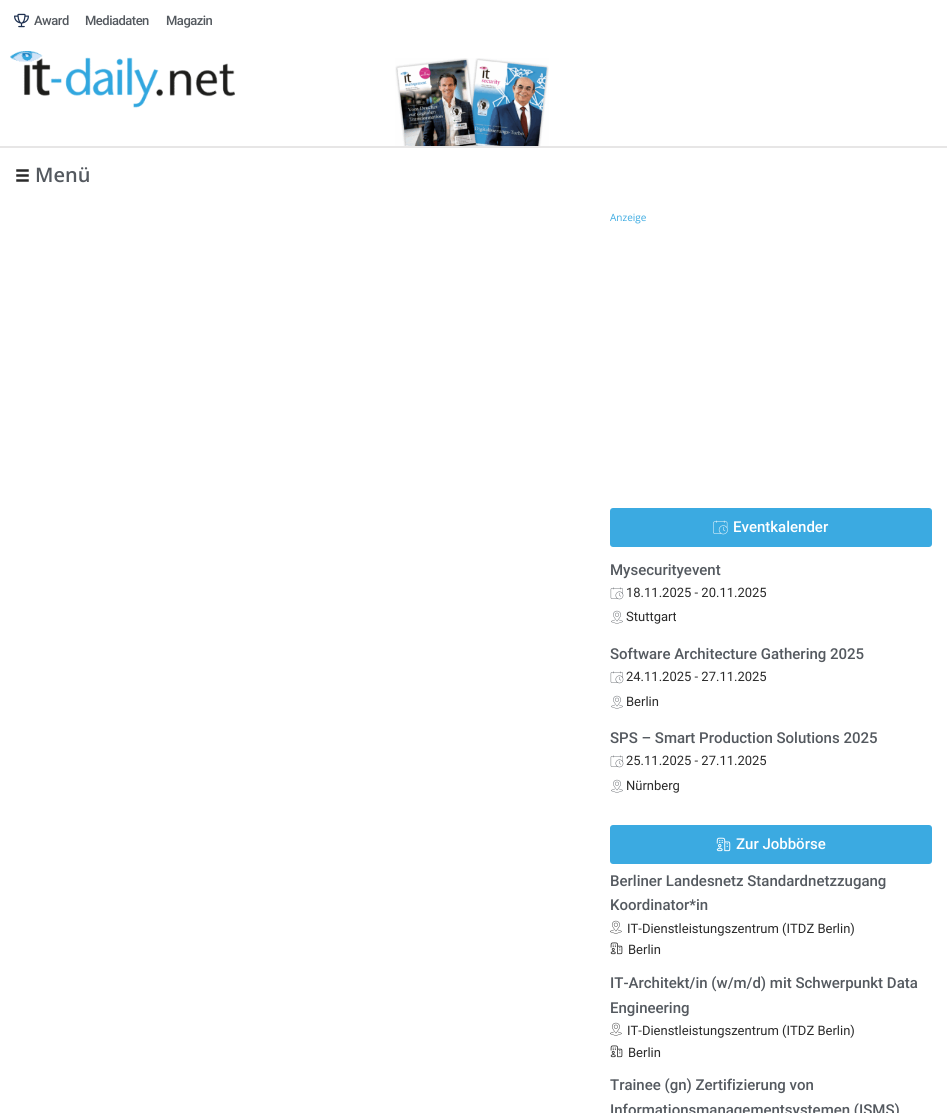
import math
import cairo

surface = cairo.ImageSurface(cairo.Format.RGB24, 947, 1113)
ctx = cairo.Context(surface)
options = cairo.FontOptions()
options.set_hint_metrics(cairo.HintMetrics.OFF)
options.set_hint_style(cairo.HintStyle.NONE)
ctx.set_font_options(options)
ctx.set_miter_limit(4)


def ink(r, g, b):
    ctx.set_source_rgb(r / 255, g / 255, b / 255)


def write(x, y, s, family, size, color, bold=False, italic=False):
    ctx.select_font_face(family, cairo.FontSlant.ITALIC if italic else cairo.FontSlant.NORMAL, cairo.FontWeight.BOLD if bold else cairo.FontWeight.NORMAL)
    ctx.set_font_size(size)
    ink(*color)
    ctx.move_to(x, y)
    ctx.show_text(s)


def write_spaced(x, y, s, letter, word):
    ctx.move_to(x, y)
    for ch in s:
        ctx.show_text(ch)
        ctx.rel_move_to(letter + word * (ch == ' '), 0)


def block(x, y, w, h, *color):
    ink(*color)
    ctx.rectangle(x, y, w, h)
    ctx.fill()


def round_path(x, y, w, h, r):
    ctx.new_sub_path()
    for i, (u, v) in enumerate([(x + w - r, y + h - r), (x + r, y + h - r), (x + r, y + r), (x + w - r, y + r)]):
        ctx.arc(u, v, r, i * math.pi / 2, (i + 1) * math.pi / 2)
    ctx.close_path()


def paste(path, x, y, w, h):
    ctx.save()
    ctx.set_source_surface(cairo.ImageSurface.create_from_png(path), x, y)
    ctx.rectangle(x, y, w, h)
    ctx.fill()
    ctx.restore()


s1 = dict(family="Open Sans SemiBold", size=20, color=(84, 89, 95))
s2 = dict(family="Open Sans", size=10, color=(59, 170, 225))
s3 = dict(family="Roboto Medium", size=15, color=(255, 255, 255))
s4 = dict(family="Roboto Medium", size=15, color=(84, 89, 95))
s5 = dict(family="Roboto", size=13, color=(42, 42, 42))

ink(255, 255, 255)
ctx.paint()
block(0, 146, 947, 2, 231, 230, 230)
paste("pic1.png", 14, 13, 15, 15)
ctx.select_font_face("Roboto Medium")
ctx.set_font_size(13)
ink(84, 89, 95)
write_spaced(34, 25, "Award", -0.5, 0)
write_spaced(85, 25, "Mediadaten", -0.5, 0)
write_spaced(166, 25, "Magazin", -0.5, 0)
paste("pic2.png", 10, 51, 225, 57)
paste("pic3.png", 395, 58, 154, 88)
paste("pic4.png", 16, 169, 13, 13)
write(35, 182, "Menü", **s1)
write(610, 221, "Anzeige", **s2)
round_path(610, 508, 322, 39, 3)
ctx.fill()
paste("pic5.png", 713, 520, 15, 15)
write(733, 532, "Eventkalender", **s3)
write(610, 575, "Mysecurityevent", **s4)
paste("pic6.png", 610, 587, 14, 13)
write(626, 597, "18.11.2025 - 20.11.2025", **s5)
paste("pic7.png", 611, 610, 12, 14)
write(626, 621, "Stuttgart", **s5)
write(610, 659, "Software Architecture Gathering 2025", **s4)
paste("pic6.png", 610, 671, 14, 13)
write(626, 681, "24.11.2025 - 27.11.2025", **s5)
paste("pic7.png", 611, 695, 12, 14)
write(626, 706, "Berlin", **s5)
write(610, 743, "SPS – Smart Production Solutions 2025", **s4)
paste("pic6.png", 610, 755, 14, 13)
write(626, 765, "25.11.2025 - 27.11.2025", **s5)
paste("pic7.png", 611, 779, 12, 14)
write(626, 790, "Nürnberg", **s5)
ink(59, 170, 225)
round_path(610, 825, 322, 39, 3)
ctx.fill()
paste("pic8.png", 716, 837, 15, 15)
write(736, 849, "Zur Jobbörse", **s3)
write(610, 886, "Berliner Landesnetz Standardnetzzugang", **s4)
write(610, 910, "Koordinator*in", **s4)
paste("pic9.png", 610, 920, 12, 14)
write(627, 933, "IT-Dienstleistungszentrum (ITDZ Berlin)", **s5)
paste("pic10.png", 610, 942, 13, 13)
write(628, 954, "Berlin", **s5)
write(610, 988, "IT-Architekt/in (w/m/d) mit Schwerpunkt Data", **s4)
write(610, 1013, "Engineering", **s4)
paste("pic9.png", 610, 1022, 12, 14)
write(627, 1035, "IT-Dienstleistungszentrum (ITDZ Berlin)", **s5)
paste("pic10.png", 610, 1045, 13, 13)
write(628, 1057, "Berlin", **s5)
write(610, 1090, "Trainee (gn) Zertifizierung von", **s4)
write(610, 1115, "Informationsmanagementsystemen (ISMS)", **s4)
surface.write_to_png("screenshot.png")
